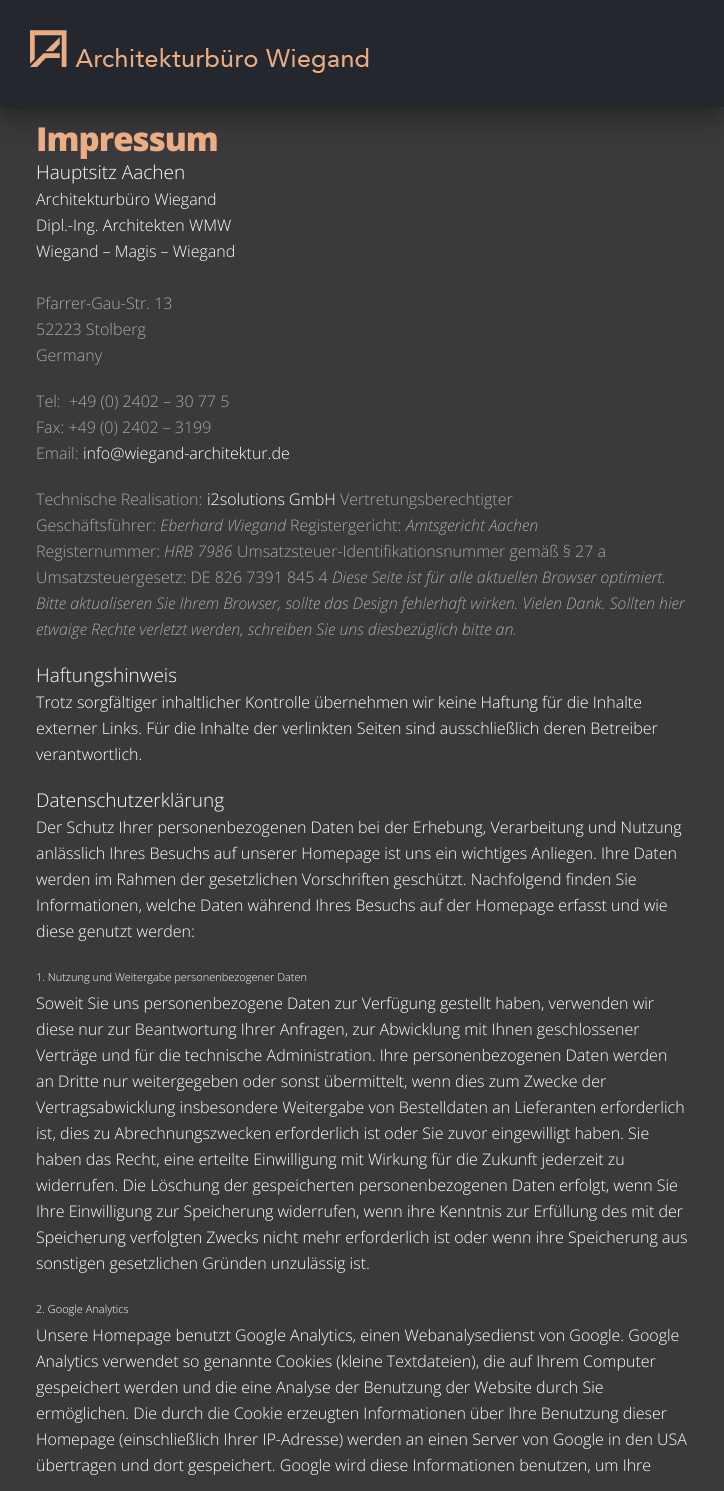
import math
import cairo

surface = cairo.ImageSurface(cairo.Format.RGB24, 724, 1491)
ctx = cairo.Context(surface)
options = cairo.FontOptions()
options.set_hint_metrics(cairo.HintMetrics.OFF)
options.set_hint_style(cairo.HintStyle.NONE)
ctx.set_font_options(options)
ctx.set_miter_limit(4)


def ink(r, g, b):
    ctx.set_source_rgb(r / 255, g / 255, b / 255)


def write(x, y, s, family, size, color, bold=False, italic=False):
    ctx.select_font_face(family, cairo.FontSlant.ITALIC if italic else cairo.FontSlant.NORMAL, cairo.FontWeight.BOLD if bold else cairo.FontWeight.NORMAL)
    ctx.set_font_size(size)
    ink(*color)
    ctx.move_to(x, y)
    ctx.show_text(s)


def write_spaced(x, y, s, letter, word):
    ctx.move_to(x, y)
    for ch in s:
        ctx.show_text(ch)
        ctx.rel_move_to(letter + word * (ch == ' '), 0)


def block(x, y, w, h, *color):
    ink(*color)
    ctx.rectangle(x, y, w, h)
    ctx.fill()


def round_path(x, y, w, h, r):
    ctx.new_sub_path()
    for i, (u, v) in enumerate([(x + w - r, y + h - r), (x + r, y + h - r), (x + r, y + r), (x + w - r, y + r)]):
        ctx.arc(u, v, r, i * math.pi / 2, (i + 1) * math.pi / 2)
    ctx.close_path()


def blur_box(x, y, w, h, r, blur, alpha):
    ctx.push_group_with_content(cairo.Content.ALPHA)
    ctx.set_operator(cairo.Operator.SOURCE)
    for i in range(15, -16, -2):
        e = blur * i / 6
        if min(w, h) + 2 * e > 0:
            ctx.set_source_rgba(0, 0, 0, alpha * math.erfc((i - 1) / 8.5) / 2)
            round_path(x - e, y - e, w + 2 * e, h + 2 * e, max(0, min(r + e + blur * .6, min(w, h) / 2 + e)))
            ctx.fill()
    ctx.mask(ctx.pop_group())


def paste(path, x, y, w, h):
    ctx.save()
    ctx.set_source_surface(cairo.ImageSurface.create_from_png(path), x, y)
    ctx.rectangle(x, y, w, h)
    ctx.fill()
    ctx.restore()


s1 = dict(family="Open Sans Light", size=19, color=(255, 255, 255))
s2 = dict(family="Open Sans Light", size=16, color=(255, 255, 255))
s3 = dict(family="Open Sans Light", size=16, color=(170, 169, 169))
s4 = dict(family="Open Sans Light", size=16, color=(170, 169, 169), italic=True)
s5 = dict(family="Open Sans Light", size=11, color=(255, 255, 255))

ink(58, 58, 60)
ctx.paint()
ink(0, 0, 0)
blur_box(7, 16, 708, 91, 0, 19, 0.62)
block(0, 0, 724, 107, 36, 39, 45)
paste("pic1.png", 30, 30, 339, 43)
ctx.select_font_face("Open Sans ExtraBold")
ctx.set_font_size(33)
ink(234, 173, 132)
write_spaced(36, 151, "Impressum", -1, 0)
write(36, 179, "Hauptsitz Aachen", **s1)
write(36, 205, "Architekturbüro Wiegand", **s2)
write(36, 231, "Dipl.-Ing. Architekten WMW", **s2)
write(36, 257, "Wiegand – Magis – Wiegand", **s2)
write(36, 309, "Pfarrer-Gau-Str. 13", **s3)
write(36, 335, "52223 Stolberg", **s3)
write(36, 361, "Germany", **s3)
write(36, 407, "Tel:  +49 (0) 2402 – 30 77 5", **s3)
write(36, 433, "Fax: +49 (0) 2402 – 3199", **s3)
write(36, 459, "Email:", **s3)
write(83, 459, "info@wiegand-architektur.de", **s2)
write(36, 505, "Technische Realisation:", **s3)
write(207, 505, "i2solutions GmbH", **s2)
write(340, 505, "Vertretungsberechtigter", **s3)
write(36, 531, "Geschäftsführer:", **s3)
write(160, 531, "Eberhard Wiegand", **s4)
write(290, 531, "Registergericht:", **s3)
write(406, 531, "Amtsgericht Aachen", **s4)
write(36, 557, "Registernummer:", **s3)
write(164, 557, "HRB 7986", **s4)
write(237, 557, "Umsatzsteuer-Identifikationsnummer gemäß § 27 a", **s3)
write(36, 583, "Umsatzsteuergesetz: DE 826 7391 845 4", **s3)
write(332, 583, "Diese Seite ist für alle aktuellen Browser optimiert.", **s4)
write(36, 609, "Bitte aktualiseren Sie Ihrem Browser, sollte das Design fehlerhaft wirken. Vielen Dank. Sollten hier", **s4)
write(36, 635, "etwaige Rechte verletzt werden, schreiben Sie uns diesbezüglich bitte an.", **s4)
write(36, 682, "Haftungshinweis", **s1)
write(36, 708, "Trotz sorgfältiger inhaltlicher Kontrolle übernehmen wir keine Haftung für die Inhalte", **s2)
write(36, 734, "externer Links. Für die Inhalte der verlinkten Seiten sind ausschließlich deren Betreiber", **s2)
write(36, 760, "verantwortlich.", **s2)
write(36, 807, "Datenschutzerklärung", **s1)
write(36, 833, "Der Schutz Ihrer personenbezogenen Daten bei der Erhebung, Verarbeitung und Nutzung", **s2)
write(36, 859, "anlässlich Ihres Besuchs auf unserer Homepage ist uns ein wichtiges Anliegen. Ihre Daten", **s2)
write(36, 885, "werden im Rahmen der gesetzlichen Vorschriften geschützt. Nachfolgend finden Sie", **s2)
write(36, 911, "Informationen, welche Daten während Ihres Besuchs auf der Homepage erfasst und wie", **s2)
write(36, 937, "diese genutzt werden:", **s2)
write(36, 981, "1. Nutzung und Weitergabe personenbezogener Daten", **s5)
write(36, 1009, "Soweit Sie uns personenbezogene Daten zur Verfügung gestellt haben, verwenden wir", **s2)
write(36, 1035, "diese nur zur Beantwortung Ihrer Anfragen, zur Abwicklung mit Ihnen geschlossener", **s2)
write(36, 1061, "Verträge und für die technische Administration. Ihre personenbezogenen Daten werden", **s2)
write(36, 1087, "an Dritte nur weitergegeben oder sonst übermittelt, wenn dies zum Zwecke der", **s2)
write(36, 1113, "Vertragsabwicklung insbesondere Weitergabe von Bestelldaten an Lieferanten erforderlich", **s2)
write(36, 1139, "ist, dies zu Abrechnungszwecken erforderlich ist oder Sie zuvor eingewilligt haben. Sie", **s2)
write(36, 1165, "haben das Recht, eine erteilte Einwilligung mit Wirkung für die Zukunft jederzeit zu", **s2)
write(36, 1191, "widerrufen. Die Löschung der gespeicherten personenbezogenen Daten erfolgt, wenn Sie", **s2)
write(36, 1217, "Ihre Einwilligung zur Speicherung widerrufen, wenn ihre Kenntnis zur Erfüllung des mit der", **s2)
write(36, 1243, "Speicherung verfolgten Zwecks nicht mehr erforderlich ist oder wenn ihre Speicherung aus", **s2)
write(36, 1269, "sonstigen gesetzlichen Gründen unzulässig ist.", **s2)
write(36, 1313, "2. Google Analytics", **s5)
write(36, 1341, "Unsere Homepage benutzt Google Analytics, einen Webanalysedienst von Google. Google", **s2)
write(36, 1367, "Analytics verwendet so genannte Cookies (kleine Textdateien), die auf Ihrem Computer", **s2)
write(36, 1393, "gespeichert werden und die eine Analyse der Benutzung der Website durch Sie", **s2)
write(36, 1419, "ermöglichen. Die durch die Cookie erzeugten Informationen über Ihre Benutzung dieser", **s2)
write(36, 1445, "Homepage (einschließlich Ihrer IP-Adresse) werden an einen Server von Google in den USA", **s2)
write(36, 1471, "übertragen und dort gespeichert. Google wird diese Informationen benutzen, um Ihre", **s2)
surface.write_to_png("screenshot.png")
